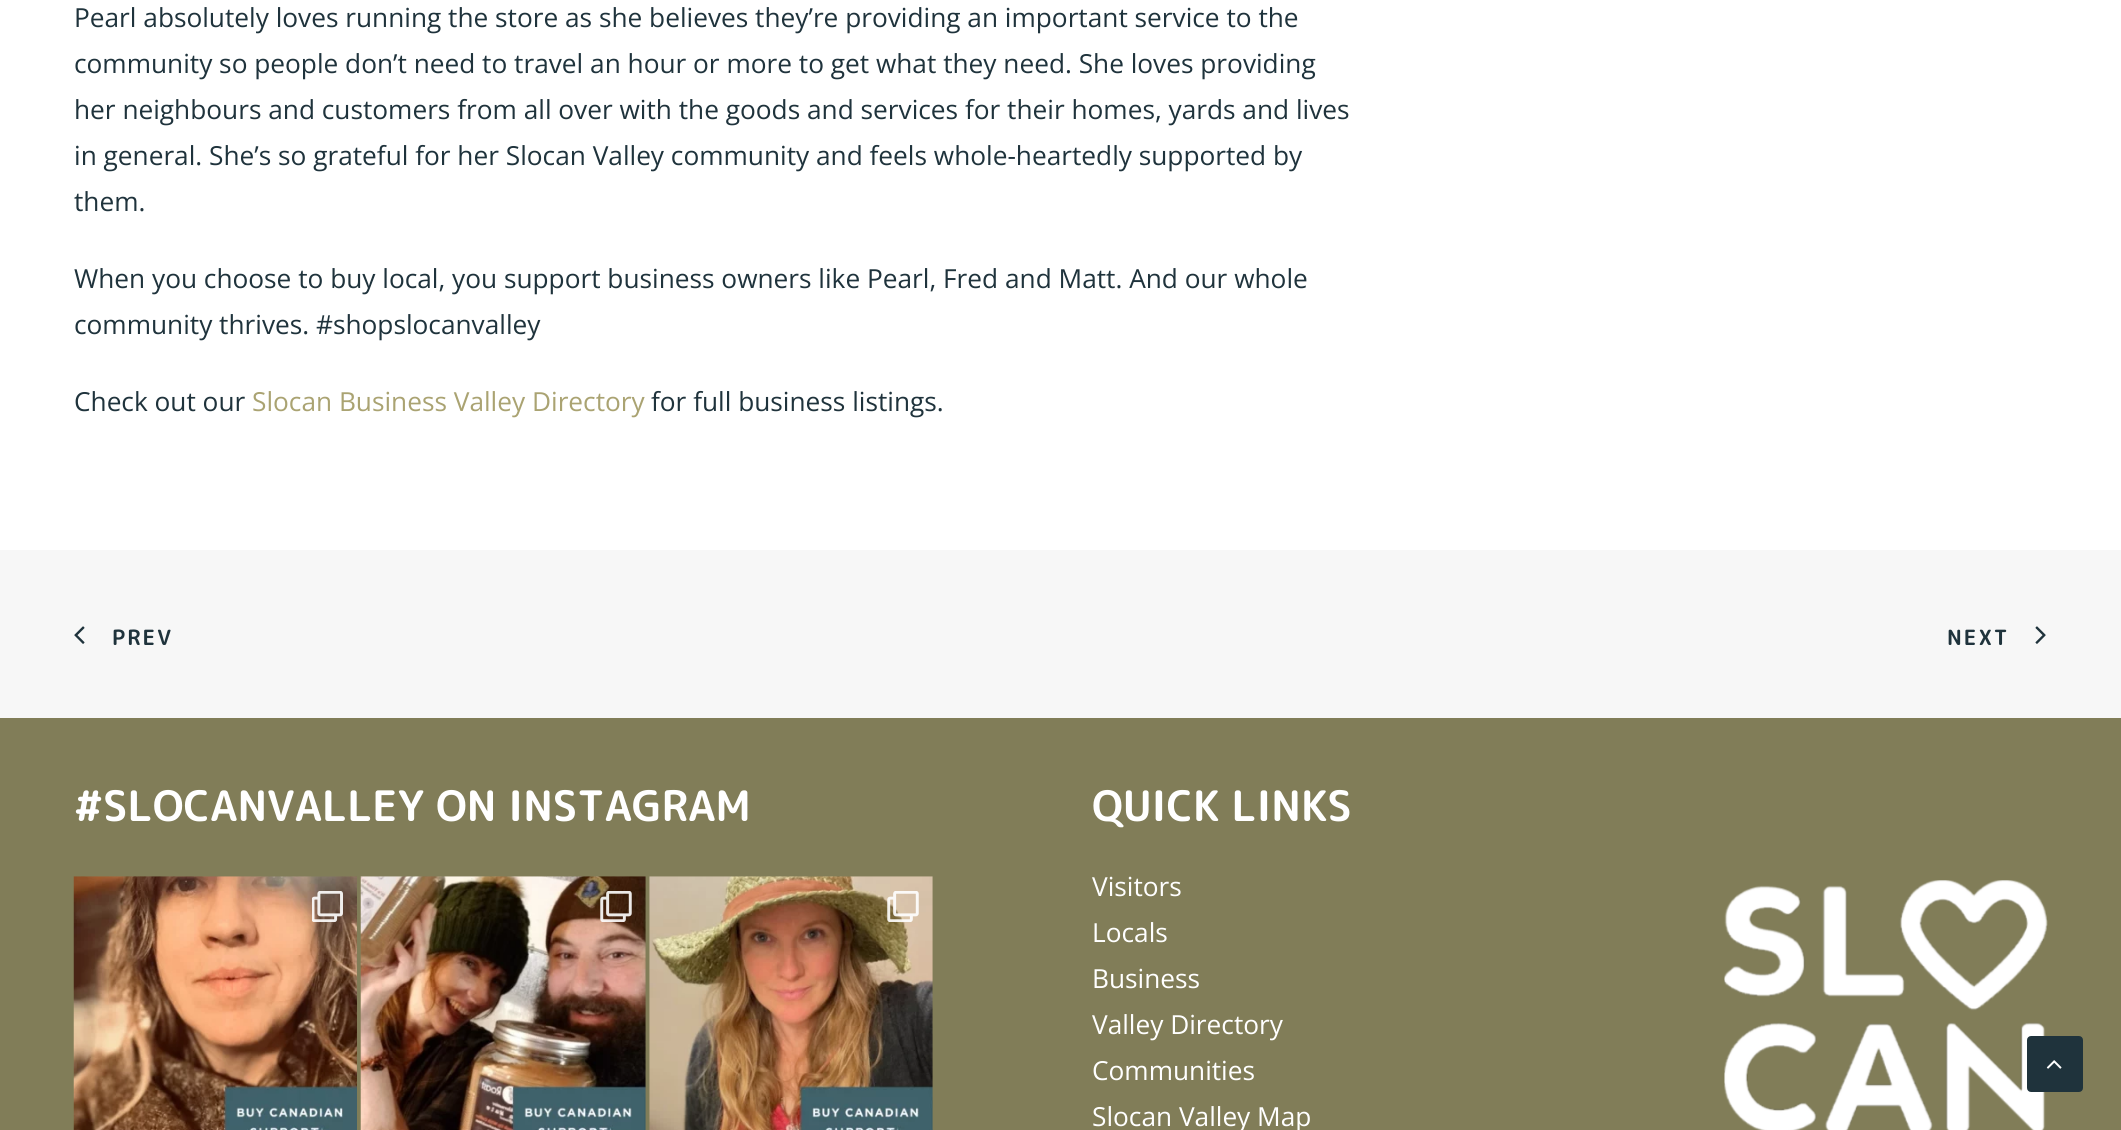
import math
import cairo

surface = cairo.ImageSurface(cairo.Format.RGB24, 2121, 1130)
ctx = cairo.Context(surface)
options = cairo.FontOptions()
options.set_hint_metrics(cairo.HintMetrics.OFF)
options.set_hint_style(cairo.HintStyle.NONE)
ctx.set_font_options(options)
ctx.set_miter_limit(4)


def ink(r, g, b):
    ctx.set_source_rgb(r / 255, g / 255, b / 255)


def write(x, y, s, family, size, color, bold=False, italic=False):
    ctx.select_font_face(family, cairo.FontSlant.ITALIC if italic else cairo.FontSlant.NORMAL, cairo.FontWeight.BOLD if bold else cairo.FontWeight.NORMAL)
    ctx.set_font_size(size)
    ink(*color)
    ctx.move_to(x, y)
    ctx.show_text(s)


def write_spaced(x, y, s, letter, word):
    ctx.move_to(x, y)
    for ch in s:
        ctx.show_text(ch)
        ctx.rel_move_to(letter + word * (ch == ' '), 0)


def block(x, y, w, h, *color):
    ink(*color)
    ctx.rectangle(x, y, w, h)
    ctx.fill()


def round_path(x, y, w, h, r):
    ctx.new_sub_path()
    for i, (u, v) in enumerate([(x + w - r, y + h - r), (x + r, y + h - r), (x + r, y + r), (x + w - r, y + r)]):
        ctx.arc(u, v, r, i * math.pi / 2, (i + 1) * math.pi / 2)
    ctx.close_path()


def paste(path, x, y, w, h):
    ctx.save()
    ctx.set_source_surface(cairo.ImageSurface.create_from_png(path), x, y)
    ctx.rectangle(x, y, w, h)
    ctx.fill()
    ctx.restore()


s1 = dict(family="Open Sans", size=26.25, color=(31, 51, 60))
s2 = dict(family="Open Sans", size=26.25, color=(170, 163, 114))
s3 = dict(family="Rounded Mplus 1c Bold", size=42, color=(255, 255, 255), bold=True)
s4 = dict(family="Open Sans", size=26.25, color=(255, 255, 255))

ink(255, 255, 255)
ctx.paint()
write(74, 27, "Pearl absolutely loves running the store as she believes they’re providing an important service to the", **s1)
write(74, 73, "community so people don’t need to travel an hour or more to get what they need. She loves providing", **s1)
write(74, 119, "her neighbours and customers from all over with the goods and services for their homes, yards and lives", **s1)
write(74, 165, "in general. She’s so grateful for her Slocan Valley community and feels whole-heartedly supported by", **s1)
write(74, 211, "them.", **s1)
write(74, 288, "When you choose to buy local, you support business owners like Pearl, Fred and Matt. And our whole", **s1)
write(74, 334, "community thrives. #shopslocanvalley", **s1)
write(74, 411, "Check out our", **s1)
write(252, 411, "Slocan Business Valley Directory", **s2)
write(651, 411, "for full business listings.", **s1)
block(0, 550, 2121, 168, 247, 247, 247)
paste("pic1.png", 74, 626, 11, 18)
ctx.select_font_face("Rounded Mplus 1c Bold", cairo.FontSlant.NORMAL, cairo.FontWeight.BOLD)
ctx.set_font_size(21)
ink(31, 51, 60)
write_spaced(112, 645, "PREV", 2, 0)
write_spaced(1947, 645, "NEXT", 2, 0)
paste("pic2.png", 2035, 626, 11, 18)
block(0, 718, 2121, 412, 129, 125, 88)
write(74, 821, "#SLOCANVALLEY ON INSTAGRAM", **s3)
paste("pic3.png", 73, 876, 284, 254)
paste("pic4.png", 312, 891, 31, 31)
paste("pic5.png", 360, 876, 286, 254)
paste("pic6.png", 600, 891, 32, 31)
paste("pic7.png", 649, 876, 284, 254)
paste("pic8.png", 887, 891, 32, 31)
write(1092, 821, "QUICK LINKS", **s3)
write(1092, 896, "Visitors", **s4)
write(1092, 942, "Locals", **s4)
write(1092, 988, "Business", **s4)
write(1092, 1034, "Valley Directory", **s4)
write(1092, 1080, "Communities", **s4)
write(1092, 1126, "Slocan Valley Map", **s4)
paste("pic9.png", 1724, 880, 324, 250)
ink(31, 51, 60)
round_path(2028, 1037, 54, 54, 3)
ctx.fill_preserve()
ctx.stroke()
paste("pic10.png", 2046, 1060, 16, 9)
surface.write_to_png("screenshot.png")
